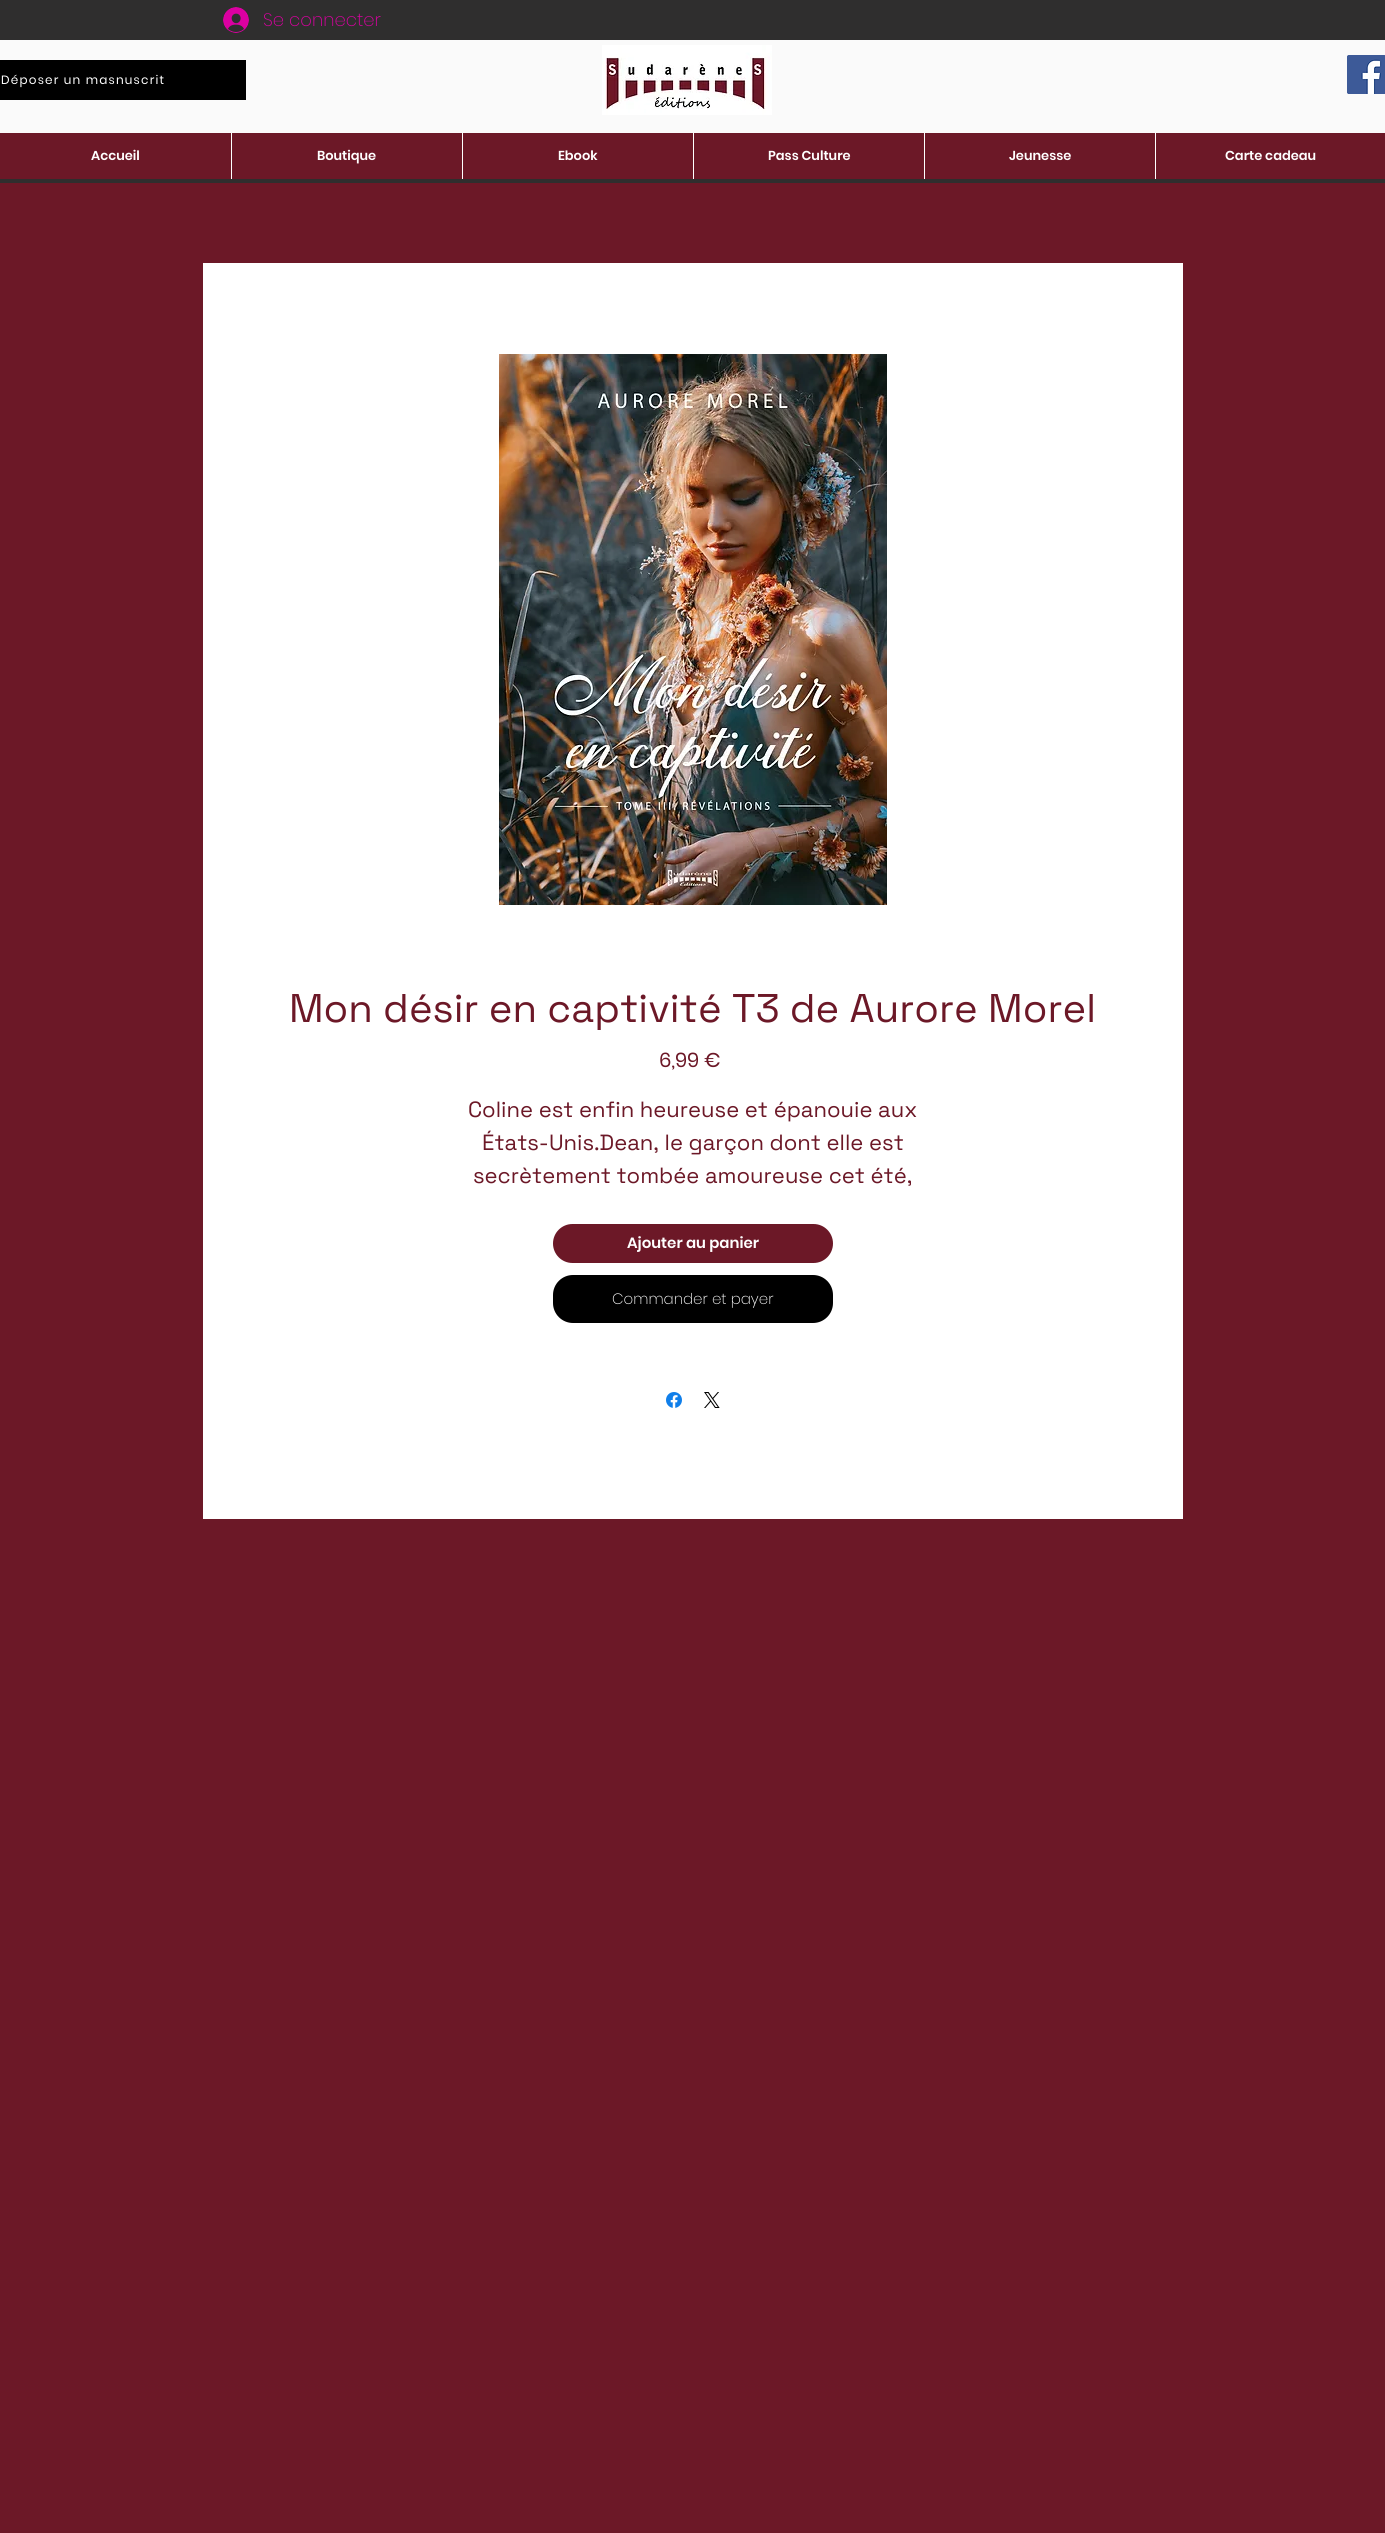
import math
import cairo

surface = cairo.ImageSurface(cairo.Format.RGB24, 1385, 2533)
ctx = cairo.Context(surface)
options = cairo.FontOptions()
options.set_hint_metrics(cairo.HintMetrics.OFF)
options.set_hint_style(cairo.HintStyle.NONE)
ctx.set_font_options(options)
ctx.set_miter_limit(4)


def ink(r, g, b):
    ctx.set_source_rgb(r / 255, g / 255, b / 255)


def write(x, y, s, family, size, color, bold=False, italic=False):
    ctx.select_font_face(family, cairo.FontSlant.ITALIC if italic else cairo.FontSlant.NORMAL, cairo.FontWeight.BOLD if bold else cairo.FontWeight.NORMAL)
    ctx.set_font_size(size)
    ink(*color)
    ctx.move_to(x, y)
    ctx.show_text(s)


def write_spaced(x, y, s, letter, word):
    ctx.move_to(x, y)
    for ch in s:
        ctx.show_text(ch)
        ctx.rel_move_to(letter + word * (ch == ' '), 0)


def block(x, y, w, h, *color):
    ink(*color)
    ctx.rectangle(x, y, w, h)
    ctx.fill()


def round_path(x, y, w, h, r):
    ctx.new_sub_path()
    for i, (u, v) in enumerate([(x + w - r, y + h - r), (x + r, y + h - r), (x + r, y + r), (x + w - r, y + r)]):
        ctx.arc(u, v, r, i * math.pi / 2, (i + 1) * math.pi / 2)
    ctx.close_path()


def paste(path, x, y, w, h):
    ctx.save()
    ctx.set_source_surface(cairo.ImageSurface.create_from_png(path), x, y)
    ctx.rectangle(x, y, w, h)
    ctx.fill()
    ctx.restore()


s1 = dict(family="Poppins ExtraLight", size=18, color=(219, 0, 161))
s2 = dict(family="Poppins SemiBold", size=13, color=(255, 255, 255))
s3 = dict(family="Space Grotesk", size=40, color=(108, 24, 39))
s4 = dict(family="Poppins", size=20, color=(108, 24, 39))
s5 = dict(family="Space Grotesk", size=22, color=(108, 24, 39))
s6 = dict(family="Poppins SemiBold", size=15, color=(255, 255, 255))
s7 = dict(family="Poppins ExtraLight", size=15, color=(255, 255, 255))

ink(108, 24, 39)
ctx.paint()
block(0, 0, 1385, 183, 47, 46, 46)
paste("pic1.png", 223, 7, 26, 26)
write(263, 26, "Se connecter", **s1)
block(0, 40, 1385, 93, 250, 250, 250)
block(0, 60, 246, 40, 0, 0, 0)
ctx.select_font_face("Poppins")
ctx.set_font_size(12)
ink(255, 255, 255)
write_spaced(1, 84, "Déposer un masnuscrit", 1.2, 0)
paste("pic2.png", 602, 45, 170, 70)
paste("pic3.png", 1347, 55, 38, 39)
block(0, 133, 1385, 46, 108, 24, 39)
write(91, 160, "Accueil", **s2)
block(231, 133, 1, 46, 255, 255, 255)
write(317, 160, "Boutique", **s2)
block(462, 133, 1, 46, 255, 255, 255)
write(558, 160, "Ebook", **s2)
block(693, 133, 1, 46, 255, 255, 255)
write(768, 160, "Pass Culture", **s2)
block(924, 133, 1, 46, 255, 255, 255)
write(1009, 160, "Jeunesse", **s2)
block(1155, 133, 1, 46, 255, 255, 255)
write(1225, 160, "Carte cadeau", **s2)
block(203, 263, 980, 1256, 255, 255, 255)
paste("pic4.png", 499, 354, 388, 551)
write(289, 1022, "Mon désir en captivité T3 de Aurore Morel", **s3)
write(659, 1067, "6,99 €", **s4)
write(468, 1117, "Coline est enfin heureuse et épanouie aux", **s5)
write(482, 1150, "États-Unis.Dean, le garçon dont elle est", **s5)
write(473, 1183, "secrètement tombée amoureuse cet été,", **s5)
round_path(553, 1224, 280, 39, 19.5)
ctx.fill()
write(627, 1248, "Ajouter au panier", **s6)
ink(0, 0, 0)
round_path(553, 1275, 280, 48, 20)
ctx.fill()
write(612, 1304, "Commander et payer", **s7)
paste("pic5.png", 666, 1392, 16, 16)
paste("pic6.png", 704, 1392, 16, 16)
surface.write_to_png("screenshot.png")
